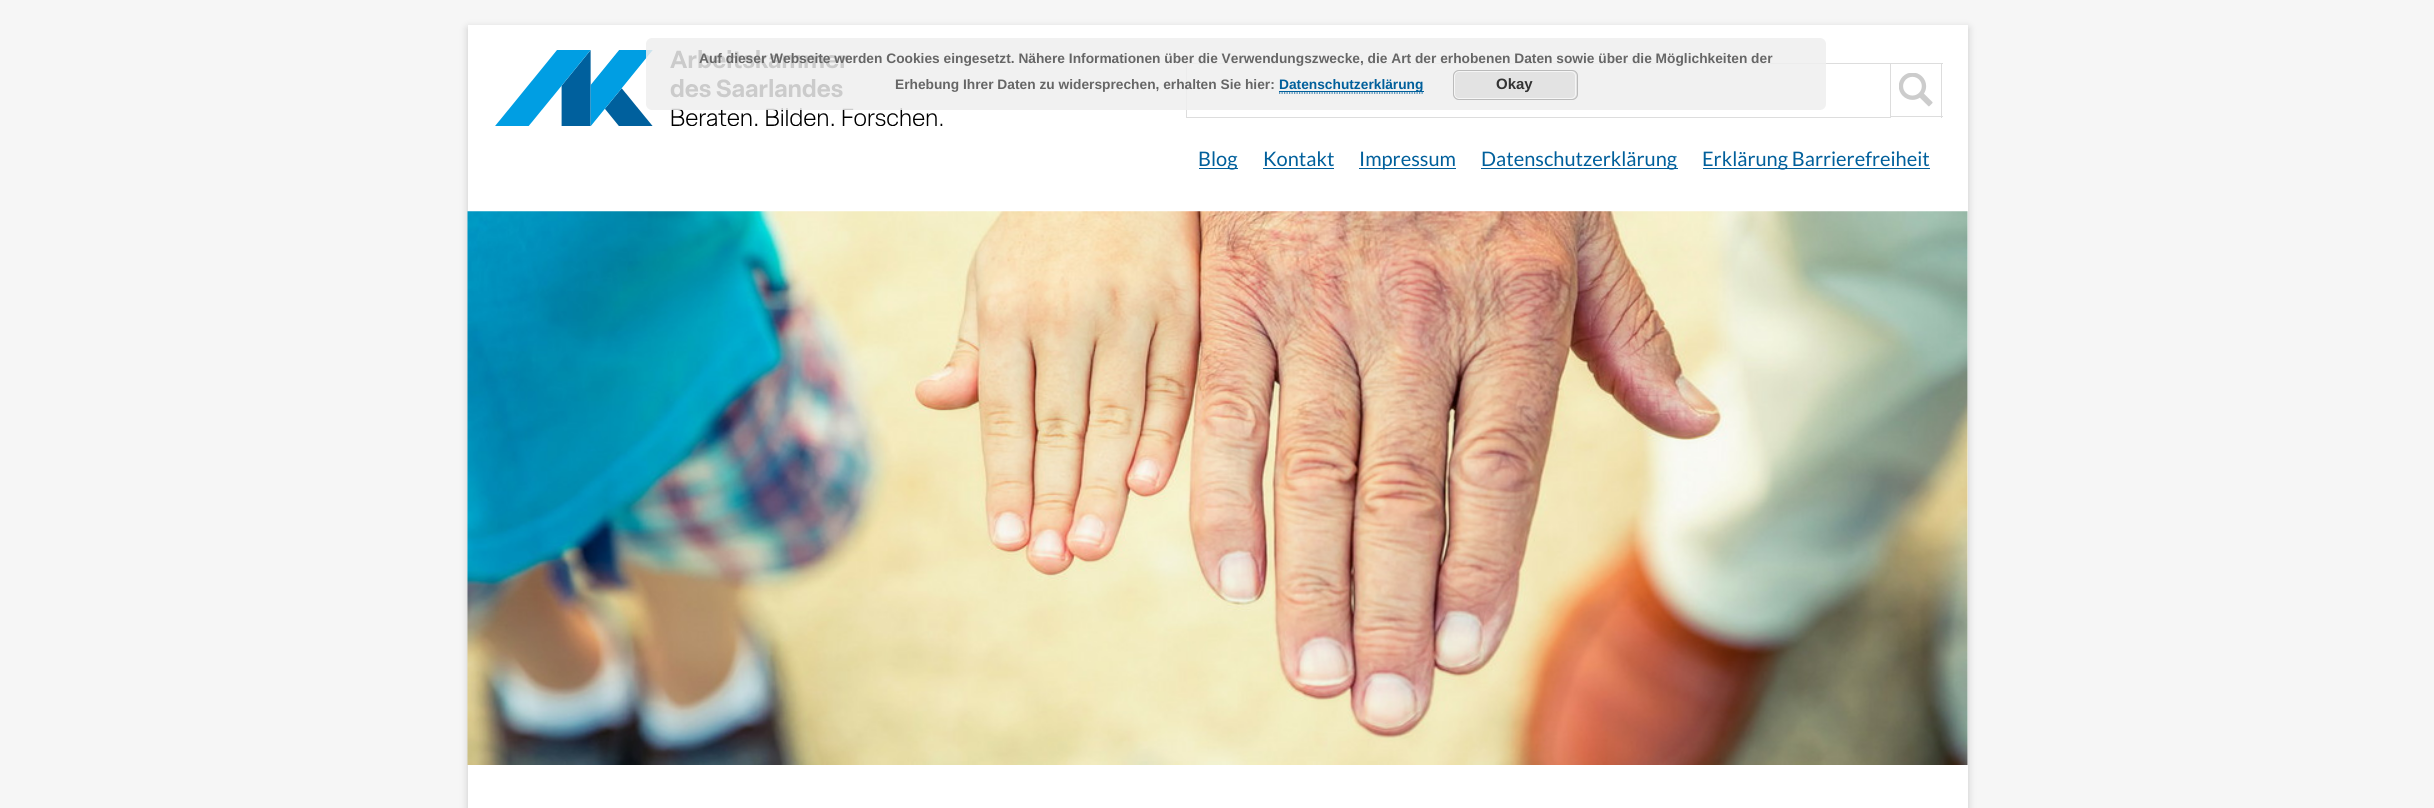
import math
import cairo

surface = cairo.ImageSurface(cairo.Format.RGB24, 2434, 808)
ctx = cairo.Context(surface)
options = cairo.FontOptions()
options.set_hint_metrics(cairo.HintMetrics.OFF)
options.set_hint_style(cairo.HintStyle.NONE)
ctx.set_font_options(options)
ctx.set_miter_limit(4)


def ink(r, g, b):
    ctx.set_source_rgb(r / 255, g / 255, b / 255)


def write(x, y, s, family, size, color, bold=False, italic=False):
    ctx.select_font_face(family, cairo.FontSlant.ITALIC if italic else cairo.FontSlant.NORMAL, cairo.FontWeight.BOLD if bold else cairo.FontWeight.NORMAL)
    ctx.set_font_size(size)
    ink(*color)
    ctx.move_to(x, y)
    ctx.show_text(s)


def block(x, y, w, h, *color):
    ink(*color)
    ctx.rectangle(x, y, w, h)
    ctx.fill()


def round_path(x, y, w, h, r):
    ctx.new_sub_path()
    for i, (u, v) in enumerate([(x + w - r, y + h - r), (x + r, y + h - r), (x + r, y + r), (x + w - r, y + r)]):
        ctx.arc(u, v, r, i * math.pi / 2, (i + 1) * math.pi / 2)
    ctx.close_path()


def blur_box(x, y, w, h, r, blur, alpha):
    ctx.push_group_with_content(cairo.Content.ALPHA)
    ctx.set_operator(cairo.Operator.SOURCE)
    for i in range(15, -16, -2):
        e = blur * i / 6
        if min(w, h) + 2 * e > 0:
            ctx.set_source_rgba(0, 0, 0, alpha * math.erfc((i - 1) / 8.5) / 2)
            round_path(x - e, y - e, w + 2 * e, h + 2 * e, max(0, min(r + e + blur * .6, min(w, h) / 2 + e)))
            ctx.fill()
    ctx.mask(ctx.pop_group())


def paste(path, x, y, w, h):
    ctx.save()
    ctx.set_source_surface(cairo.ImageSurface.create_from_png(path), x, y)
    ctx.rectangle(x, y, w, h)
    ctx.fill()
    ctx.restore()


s1 = dict(family="Liberation Sans", size=13.75, color=(102, 102, 102), bold=True)
s2 = dict(family="Liberation Sans", size=13.75, color=(0, 95, 155), bold=True)
s3 = dict(family="Liberation Sans", size=15, color=(51, 51, 51), bold=True)
s4 = dict(family="Lato", size=20, color=(0, 95, 155))

ink(246, 246, 246)
ctx.paint()
ink(99, 99, 99)
blur_box(468, 28, 1500, 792, 0, 4, 0.3)
block(468, 25, 1500, 783, 255, 255, 255)
paste("pic1.png", 495, 50, 448, 76)
ctx.rectangle(1186.5, 63.5, 704, 54)
ink(221, 221, 221)
ctx.set_line_width(1)
ctx.stroke()
ctx.set_source_rgba(0.937, 0.937, 0.937, 0.85)
round_path(646, 38, 1180, 72, 6)
ctx.fill()
write(699, 63, "Auf dieser Webseite werden Cookies eingesetzt. Nähere Informationen über die Verwendungszwecke, die Art der erhobenen Daten sowie über die Möglichkeiten der", **s1)
write(895, 89, "Erhebung Ihrer Daten zu widersprechen, erhalten Sie hier:", **s1)
block(1279, 91, 145, 1, 0, 95, 155)
write(1279, 89, "Datenschutzerklärung", **s2)
ctx.new_path()
ctx.move_to(1279, 93)
ctx.line_to(1424, 93)
ctx.set_line_width(1.2)
ctx.set_dash([1.25, 1.25])
ctx.stroke()
ink(227, 227, 227)
round_path(1453, 70, 125, 30, 6)
ctx.fill()
round_path(1454.5, 71.5, 121, 27, 4.5)
ink(246, 246, 246)
ctx.set_line_width(1)
ctx.set_dash([])
ctx.stroke()
round_path(1453.5, 70.5, 124, 29, 5.5)
ink(187, 187, 187)
ctx.stroke()
write(1496, 89, "Okay", **s3)
paste("pic2.png", 1899, 73, 34, 34)
block(1891, 63, 52, 1, 221, 221, 221)
block(1941, 63, 1, 55, 221, 221, 221)
block(1891, 116, 52, 1, 221, 221, 221)
block(1199, 168, 39, 1, 0, 95, 155)
write(1198, 166, "Blog", **s4)
write(1263, 166, "Kontakt", **s4)
block(1263, 168, 71, 1, 0, 95, 155)
block(1359, 168, 97, 1, 0, 95, 155)
write(1359, 166, "Impressum", **s4)
block(1481, 168, 197, 1, 0, 95, 155)
write(1481, 166, "Datenschutzerklärung", **s4)
block(1703, 168, 227, 1, 0, 95, 155)
write(1702, 166, "Erklärung Barrierefreiheit", **s4)
paste("pic3.png", 467, 211, 1501, 554)
surface.write_to_png("screenshot.png")
